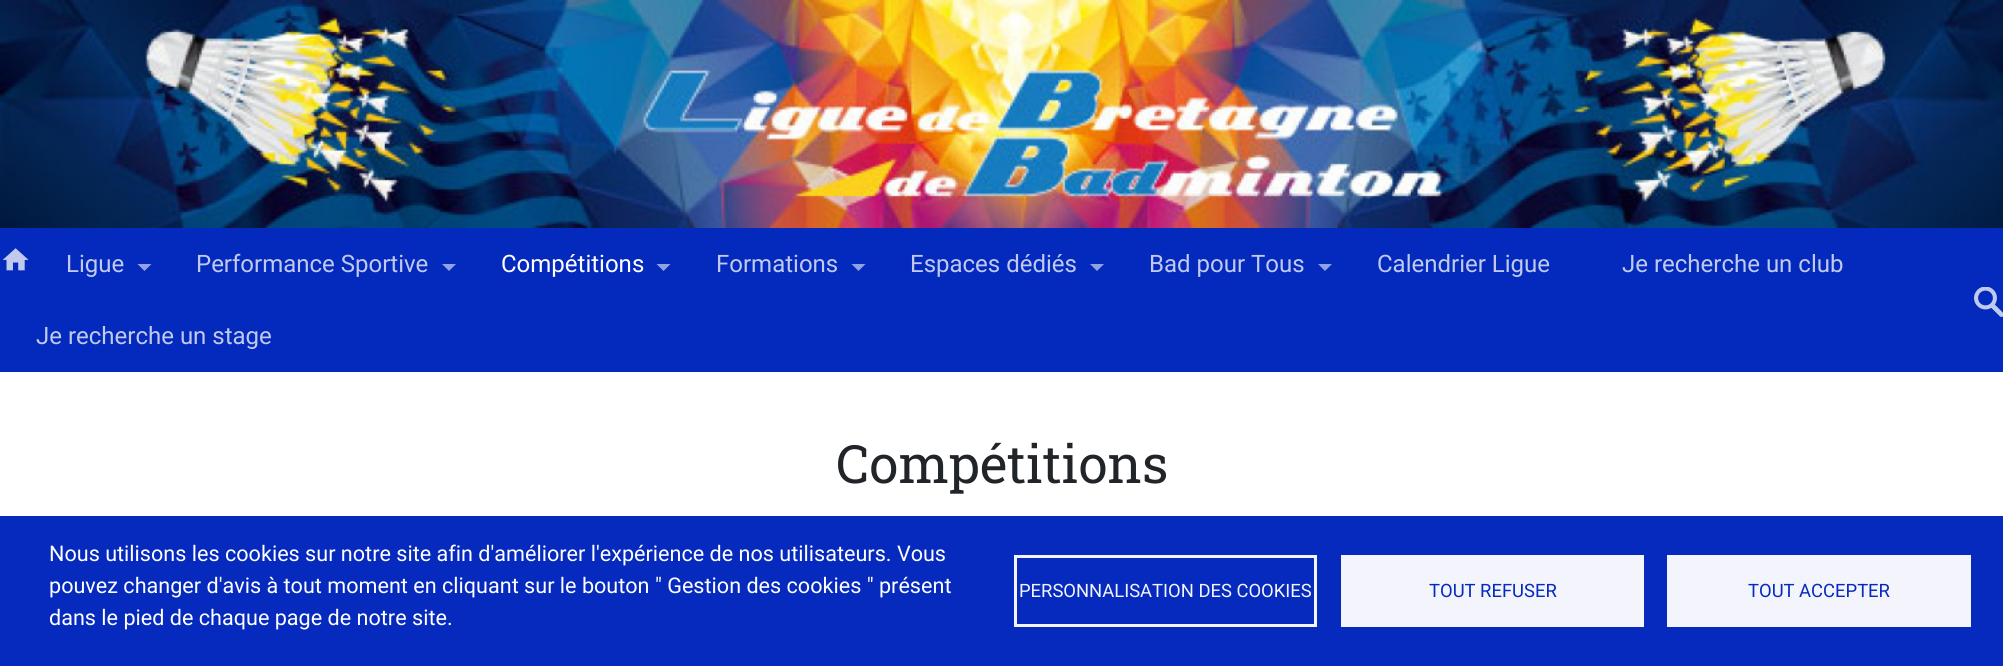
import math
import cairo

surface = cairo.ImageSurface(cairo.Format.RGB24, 2003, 666)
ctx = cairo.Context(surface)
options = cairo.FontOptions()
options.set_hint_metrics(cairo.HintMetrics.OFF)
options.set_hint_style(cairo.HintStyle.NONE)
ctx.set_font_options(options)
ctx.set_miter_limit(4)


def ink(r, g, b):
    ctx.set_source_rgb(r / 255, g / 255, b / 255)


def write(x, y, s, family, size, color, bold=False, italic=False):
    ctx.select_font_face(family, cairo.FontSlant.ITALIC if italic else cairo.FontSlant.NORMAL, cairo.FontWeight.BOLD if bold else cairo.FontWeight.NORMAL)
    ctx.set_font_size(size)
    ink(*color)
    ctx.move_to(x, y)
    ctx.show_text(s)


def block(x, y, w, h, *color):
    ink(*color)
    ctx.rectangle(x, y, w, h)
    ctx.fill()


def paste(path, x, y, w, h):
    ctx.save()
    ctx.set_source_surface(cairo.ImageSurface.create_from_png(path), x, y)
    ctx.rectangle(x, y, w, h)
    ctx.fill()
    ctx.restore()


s1 = dict(family="Roboto", size=24, color=(192, 202, 239))
s2 = dict(family="Roboto", size=24, color=(255, 255, 255))
s3 = dict(family="Roboto Slab", size=52.75, color=(33, 37, 41))
s4 = dict(family="Roboto", size=21.6, color=(255, 255, 255))
s5 = dict(family="Roboto", size=18.4, color=(243, 244, 252))
s6 = dict(family="Roboto", size=18.4, color=(5, 42, 189))

ink(255, 255, 255)
ctx.paint()
paste("pic1.png", 0, 0, 2003, 228)
block(0, 228, 2003, 144, 4, 42, 189)
paste("pic2.png", 2, 248, 27, 23)
write(66, 272, "Ligue", **s1)
ink(145, 162, 227)
ctx.new_path()
ctx.move_to(137.5, 264)
ctx.line_to(151.5, 264)
ctx.line_to(144.5, 271)
ctx.close_path()
ctx.fill()
write(196, 272, "Performance Sportive", **s1)
ink(145, 162, 227)
ctx.new_path()
ctx.move_to(442, 264)
ctx.line_to(456, 264)
ctx.line_to(449, 271)
ctx.close_path()
ctx.fill()
write(501, 272, "Compétitions", **s2)
ink(145, 162, 227)
ctx.new_path()
ctx.move_to(656.5, 264)
ctx.line_to(670.5, 264)
ctx.line_to(663.5, 271)
ctx.close_path()
ctx.fill()
write(716, 272, "Formations", **s1)
ink(145, 162, 227)
ctx.new_path()
ctx.move_to(851.5, 264)
ctx.line_to(865.5, 264)
ctx.line_to(858.5, 271)
ctx.close_path()
ctx.fill()
write(910, 272, "Espaces dédiés", **s1)
ink(145, 162, 227)
ctx.new_path()
ctx.move_to(1090, 264)
ctx.line_to(1104, 264)
ctx.line_to(1097, 271)
ctx.close_path()
ctx.fill()
write(1149, 272, "Bad pour Tous", **s1)
ink(145, 162, 227)
ctx.new_path()
ctx.move_to(1318, 264)
ctx.line_to(1332, 264)
ctx.line_to(1325, 271)
ctx.close_path()
ctx.fill()
write(1377, 272, "Calendrier Ligue", **s1)
write(1622, 272, "Je recherche un club", **s1)
write(36, 344, "Je recherche un stage", **s1)
paste("pic3.png", 1974, 287, 29, 30)
write(836, 483, "Compétitions", **s3)
block(0, 516, 2003, 150, 5, 42, 189)
write(49, 561, "Nous utilisons les cookies sur notre site afin d'améliorer l'expérience de nos utilisateurs. Vous", **s4)
write(49, 593, "pouvez changer d'avis à tout moment en cliquant sur le bouton \" Gestion des cookies \" présent", **s4)
write(49, 625, "dans le pied de chaque page de notre site.", **s4)
ctx.rectangle(1015.5, 556.5, 300, 69)
ink(243, 244, 252)
ctx.set_line_width(3)
ctx.stroke()
write(1019, 597, "PERSONNALISATION DES COOKIES", **s5)
block(1341, 555, 303, 72, 243, 244, 252)
write(1429, 597, "TOUT REFUSER", **s6)
block(1667, 555, 304, 72, 243, 244, 252)
write(1748, 597, "TOUT ACCEPTER", **s6)
surface.write_to_png("screenshot.png")
